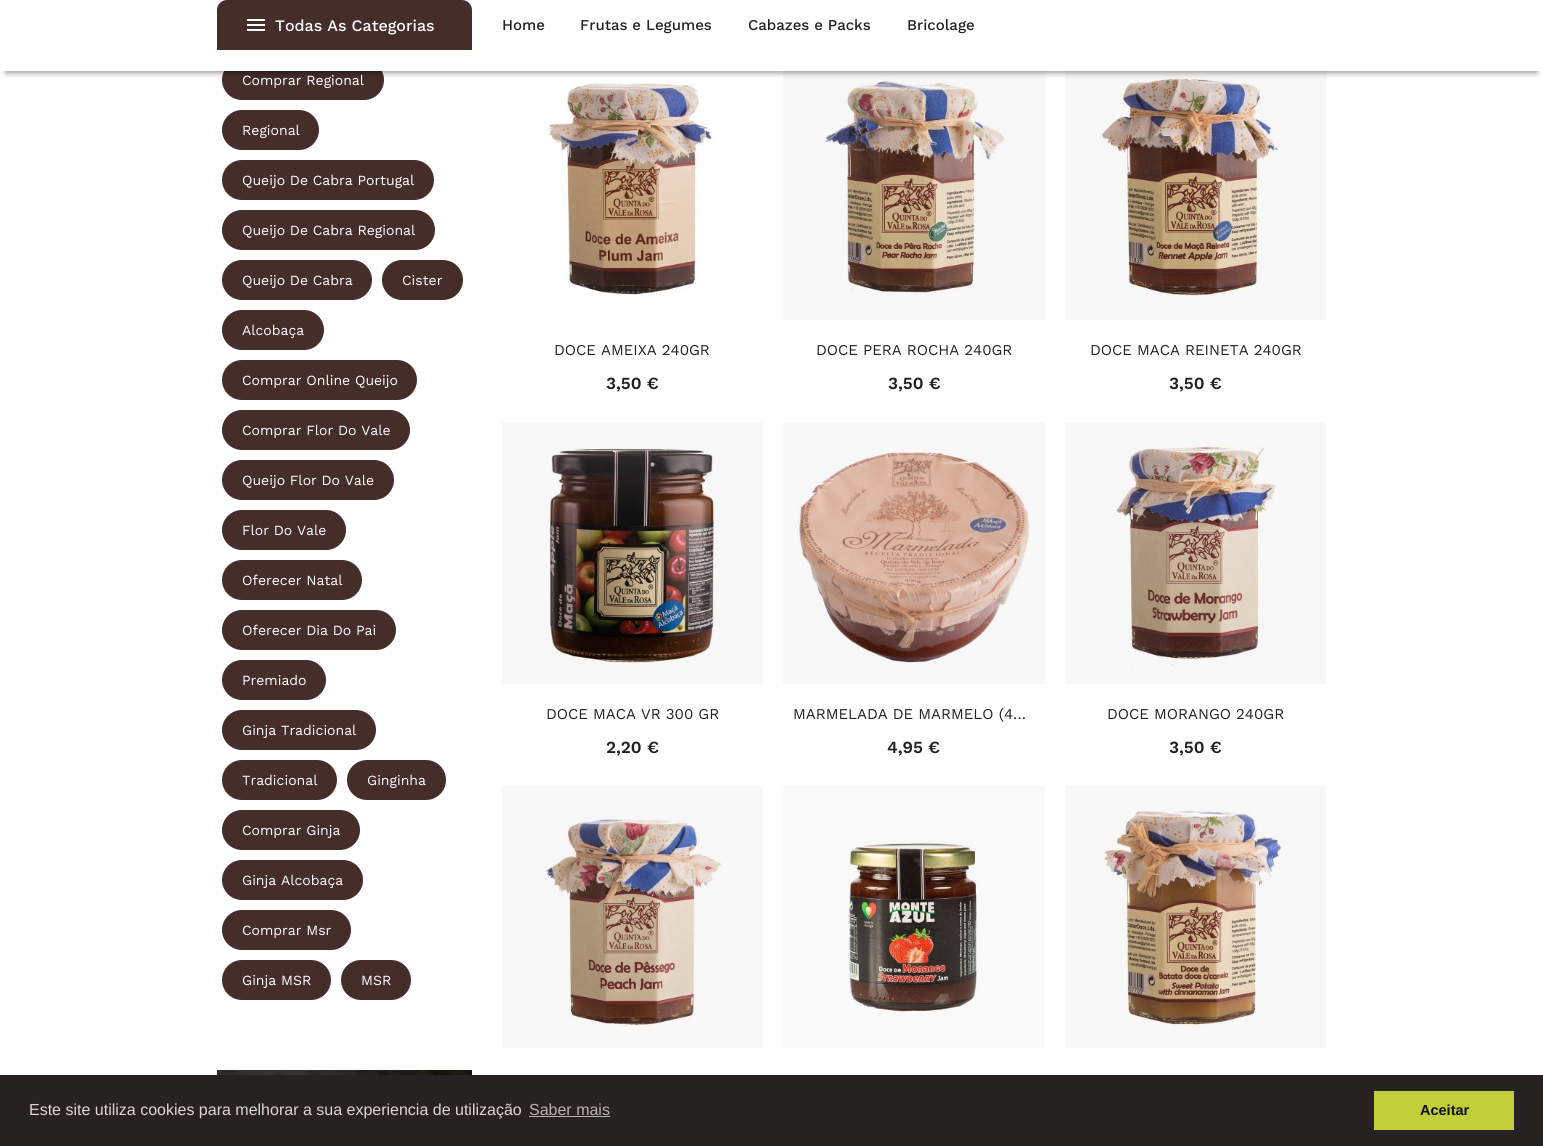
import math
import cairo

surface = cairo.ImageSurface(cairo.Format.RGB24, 1543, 1146)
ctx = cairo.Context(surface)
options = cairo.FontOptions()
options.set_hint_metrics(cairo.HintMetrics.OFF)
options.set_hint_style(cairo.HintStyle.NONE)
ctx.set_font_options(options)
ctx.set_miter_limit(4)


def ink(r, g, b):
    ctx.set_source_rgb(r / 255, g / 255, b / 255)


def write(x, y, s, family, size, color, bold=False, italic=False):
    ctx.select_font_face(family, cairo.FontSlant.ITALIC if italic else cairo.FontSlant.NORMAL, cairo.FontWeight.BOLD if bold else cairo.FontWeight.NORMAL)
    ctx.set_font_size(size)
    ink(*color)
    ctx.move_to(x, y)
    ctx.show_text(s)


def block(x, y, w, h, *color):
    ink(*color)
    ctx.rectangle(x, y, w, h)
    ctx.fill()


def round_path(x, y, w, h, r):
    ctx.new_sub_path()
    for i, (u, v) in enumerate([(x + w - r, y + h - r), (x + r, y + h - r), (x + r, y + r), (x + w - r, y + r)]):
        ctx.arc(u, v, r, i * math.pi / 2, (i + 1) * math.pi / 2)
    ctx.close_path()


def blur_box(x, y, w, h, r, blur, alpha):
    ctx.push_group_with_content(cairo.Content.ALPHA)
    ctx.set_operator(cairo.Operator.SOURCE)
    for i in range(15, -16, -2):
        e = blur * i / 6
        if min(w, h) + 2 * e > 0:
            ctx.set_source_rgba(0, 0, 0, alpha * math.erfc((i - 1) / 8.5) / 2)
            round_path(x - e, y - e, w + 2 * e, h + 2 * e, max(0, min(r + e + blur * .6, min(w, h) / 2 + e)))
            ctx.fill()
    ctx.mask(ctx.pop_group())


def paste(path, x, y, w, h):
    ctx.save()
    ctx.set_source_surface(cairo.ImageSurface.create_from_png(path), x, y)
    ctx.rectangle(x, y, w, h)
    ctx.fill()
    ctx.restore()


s1 = dict(family="Work Sans Medium", size=16, color=(255, 255, 255))
s2 = dict(family="Work Sans Medium", size=15, color=(34, 34, 34))
s3 = dict(family="Work Sans", size=14, color=(255, 255, 255))
s4 = dict(family="Work Sans", size=15, color=(34, 34, 34))
s5 = dict(family="Work Sans SemiBold", size=17, color=(34, 34, 34))
s6 = dict(family="Liberation Sans", size=16, color=(224, 212, 212))
s7 = dict(family="Liberation Sans", size=16, color=(187, 176, 176))
s8 = dict(family="Liberation Sans", size=14.5, color=(13, 11, 11), bold=True)

ink(255, 255, 255)
ctx.paint()
ink(69, 45, 41)
round_path(222, 60, 162, 40, 20)
ctx.fill()
paste("pic3.png", 545, 82, 169, 215)
paste("pic4.png", 783, 71, 262, 249)
paste("pic5.png", 1065, 71, 261, 249)
ink(0, 0, 0)
blur_box(6, 14, 1531, 59, 0, 3, 0.4)
block(0, 8, 1543, 63, 255, 255, 255)
ink(69, 45, 41)
ctx.new_path()
ctx.move_to(227, 0)
ctx.line_to(462, 0)
ctx.curve_to(467.5, 0, 472, 4.5, 472, 10)
ctx.line_to(472, 50)
ctx.line_to(217, 50)
ctx.line_to(217, 10)
ctx.curve_to(217, 4.5, 221.5, 0, 227, 0)
ctx.close_path()
ctx.fill()
paste("pic1.png", 247, 19, 18, 12)
write(275, 31, "Todas As Categorias", **s1)
write(502, 30, "Home", **s2)
write(580, 30, "Frutas e Legumes", **s2)
write(748, 30, "Cabazes e Packs", **s2)
write(907, 30, "Bricolage", **s2)
write(242, 85, "Comprar Regional", **s3)
ink(69, 45, 41)
round_path(222, 110, 97, 40, 20)
ctx.fill()
write(242, 135, "Regional", **s3)
ink(69, 45, 41)
round_path(222, 160, 212, 40, 20)
ctx.fill()
write(242, 185, "Queijo De Cabra Portugal", **s3)
ink(69, 45, 41)
round_path(222, 210, 213, 40, 20)
ctx.fill()
write(242, 235, "Queijo De Cabra Regional", **s3)
ink(69, 45, 41)
round_path(222, 260, 150, 40, 20)
ctx.fill()
write(242, 285, "Queijo De Cabra", **s3)
ink(69, 45, 41)
round_path(382, 260, 81, 40, 20)
ctx.fill()
write(402, 285, "Cister", **s3)
ink(69, 45, 41)
round_path(222, 310, 102, 40, 20)
ctx.fill()
write(242, 335, "Alcobaça", **s3)
ink(69, 45, 41)
round_path(222, 360, 195, 40, 20)
ctx.fill()
write(242, 385, "Comprar Online Queijo", **s3)
ink(69, 45, 41)
round_path(222, 410, 188, 40, 20)
ctx.fill()
write(242, 435, "Comprar Flor Do Vale", **s3)
ink(69, 45, 41)
round_path(222, 460, 172, 40, 20)
ctx.fill()
write(242, 485, "Queijo Flor Do Vale", **s3)
ink(69, 45, 41)
round_path(222, 510, 124, 40, 20)
ctx.fill()
write(242, 535, "Flor Do Vale", **s3)
ink(69, 45, 41)
round_path(222, 560, 140, 40, 20)
ctx.fill()
write(242, 585, "Oferecer Natal", **s3)
ink(69, 45, 41)
round_path(222, 610, 174, 40, 20)
ctx.fill()
write(242, 635, "Oferecer Dia Do Pai", **s3)
ink(69, 45, 41)
round_path(222, 660, 104, 40, 20)
ctx.fill()
write(242, 685, "Premiado", **s3)
ink(69, 45, 41)
round_path(222, 710, 154, 40, 20)
ctx.fill()
write(242, 735, "Ginja Tradicional", **s3)
ink(69, 45, 41)
round_path(222, 760, 115, 40, 20)
ctx.fill()
write(242, 785, "Tradicional", **s3)
ink(69, 45, 41)
round_path(347, 760, 99, 40, 20)
ctx.fill()
write(367, 785, "Ginginha", **s3)
ink(69, 45, 41)
round_path(222, 810, 138, 40, 20)
ctx.fill()
write(242, 835, "Comprar Ginja", **s3)
ink(69, 45, 41)
round_path(222, 860, 141, 40, 20)
ctx.fill()
write(242, 885, "Ginja Alcobaça", **s3)
ink(69, 45, 41)
round_path(222, 910, 129, 40, 20)
ctx.fill()
write(242, 935, "Comprar Msr", **s3)
ink(69, 45, 41)
round_path(222, 960, 109, 40, 20)
ctx.fill()
write(242, 985, "Ginja MSR", **s3)
ink(69, 45, 41)
round_path(341, 960, 70, 40, 20)
ctx.fill()
write(361, 985, "MSR", **s3)
paste("pic2.png", 217, 1070, 255, 5)
write(554, 355, "DOCE AMEIXA 240GR", **s4)
write(606, 389, "3,50 €", **s5)
write(816, 355, "DOCE PERA ROCHA 240GR", **s4)
write(888, 389, "3,50 €", **s5)
write(1090, 355, "DOCE MACA REINETA 240GR", **s4)
write(1169, 389, "3,50 €", **s5)
paste("pic6.png", 502, 422, 261, 262)
write(546, 719, "DOCE MACA VR 300 GR", **s4)
write(606, 753, "2,20 €", **s5)
paste("pic7.png", 783, 422, 262, 262)
write(793, 719, "MARMELADA DE MARMELO (4…", **s4)
write(887, 753, "4,95 €", **s5)
paste("pic8.png", 1065, 422, 261, 262)
write(1107, 719, "DOCE MORANGO 240GR", **s4)
write(1169, 753, "3,50 €", **s5)
paste("pic9.png", 502, 786, 261, 262)
paste("pic10.png", 783, 786, 262, 262)
paste("pic11.png", 1065, 786, 261, 262)
block(0, 1075, 1543, 71, 38, 34, 34)
write(29, 1115, "Este site utiliza cookies para melhorar a sua experiencia de utilização", **s6)
write(529, 1115, "Saber mais", **s7)
block(529, 1116, 81, 1, 187, 176, 176)
block(1374, 1091, 140, 39, 195, 207, 58)
write(1420, 1115, "Aceitar", **s8)
surface.write_to_png("screenshot.png")
